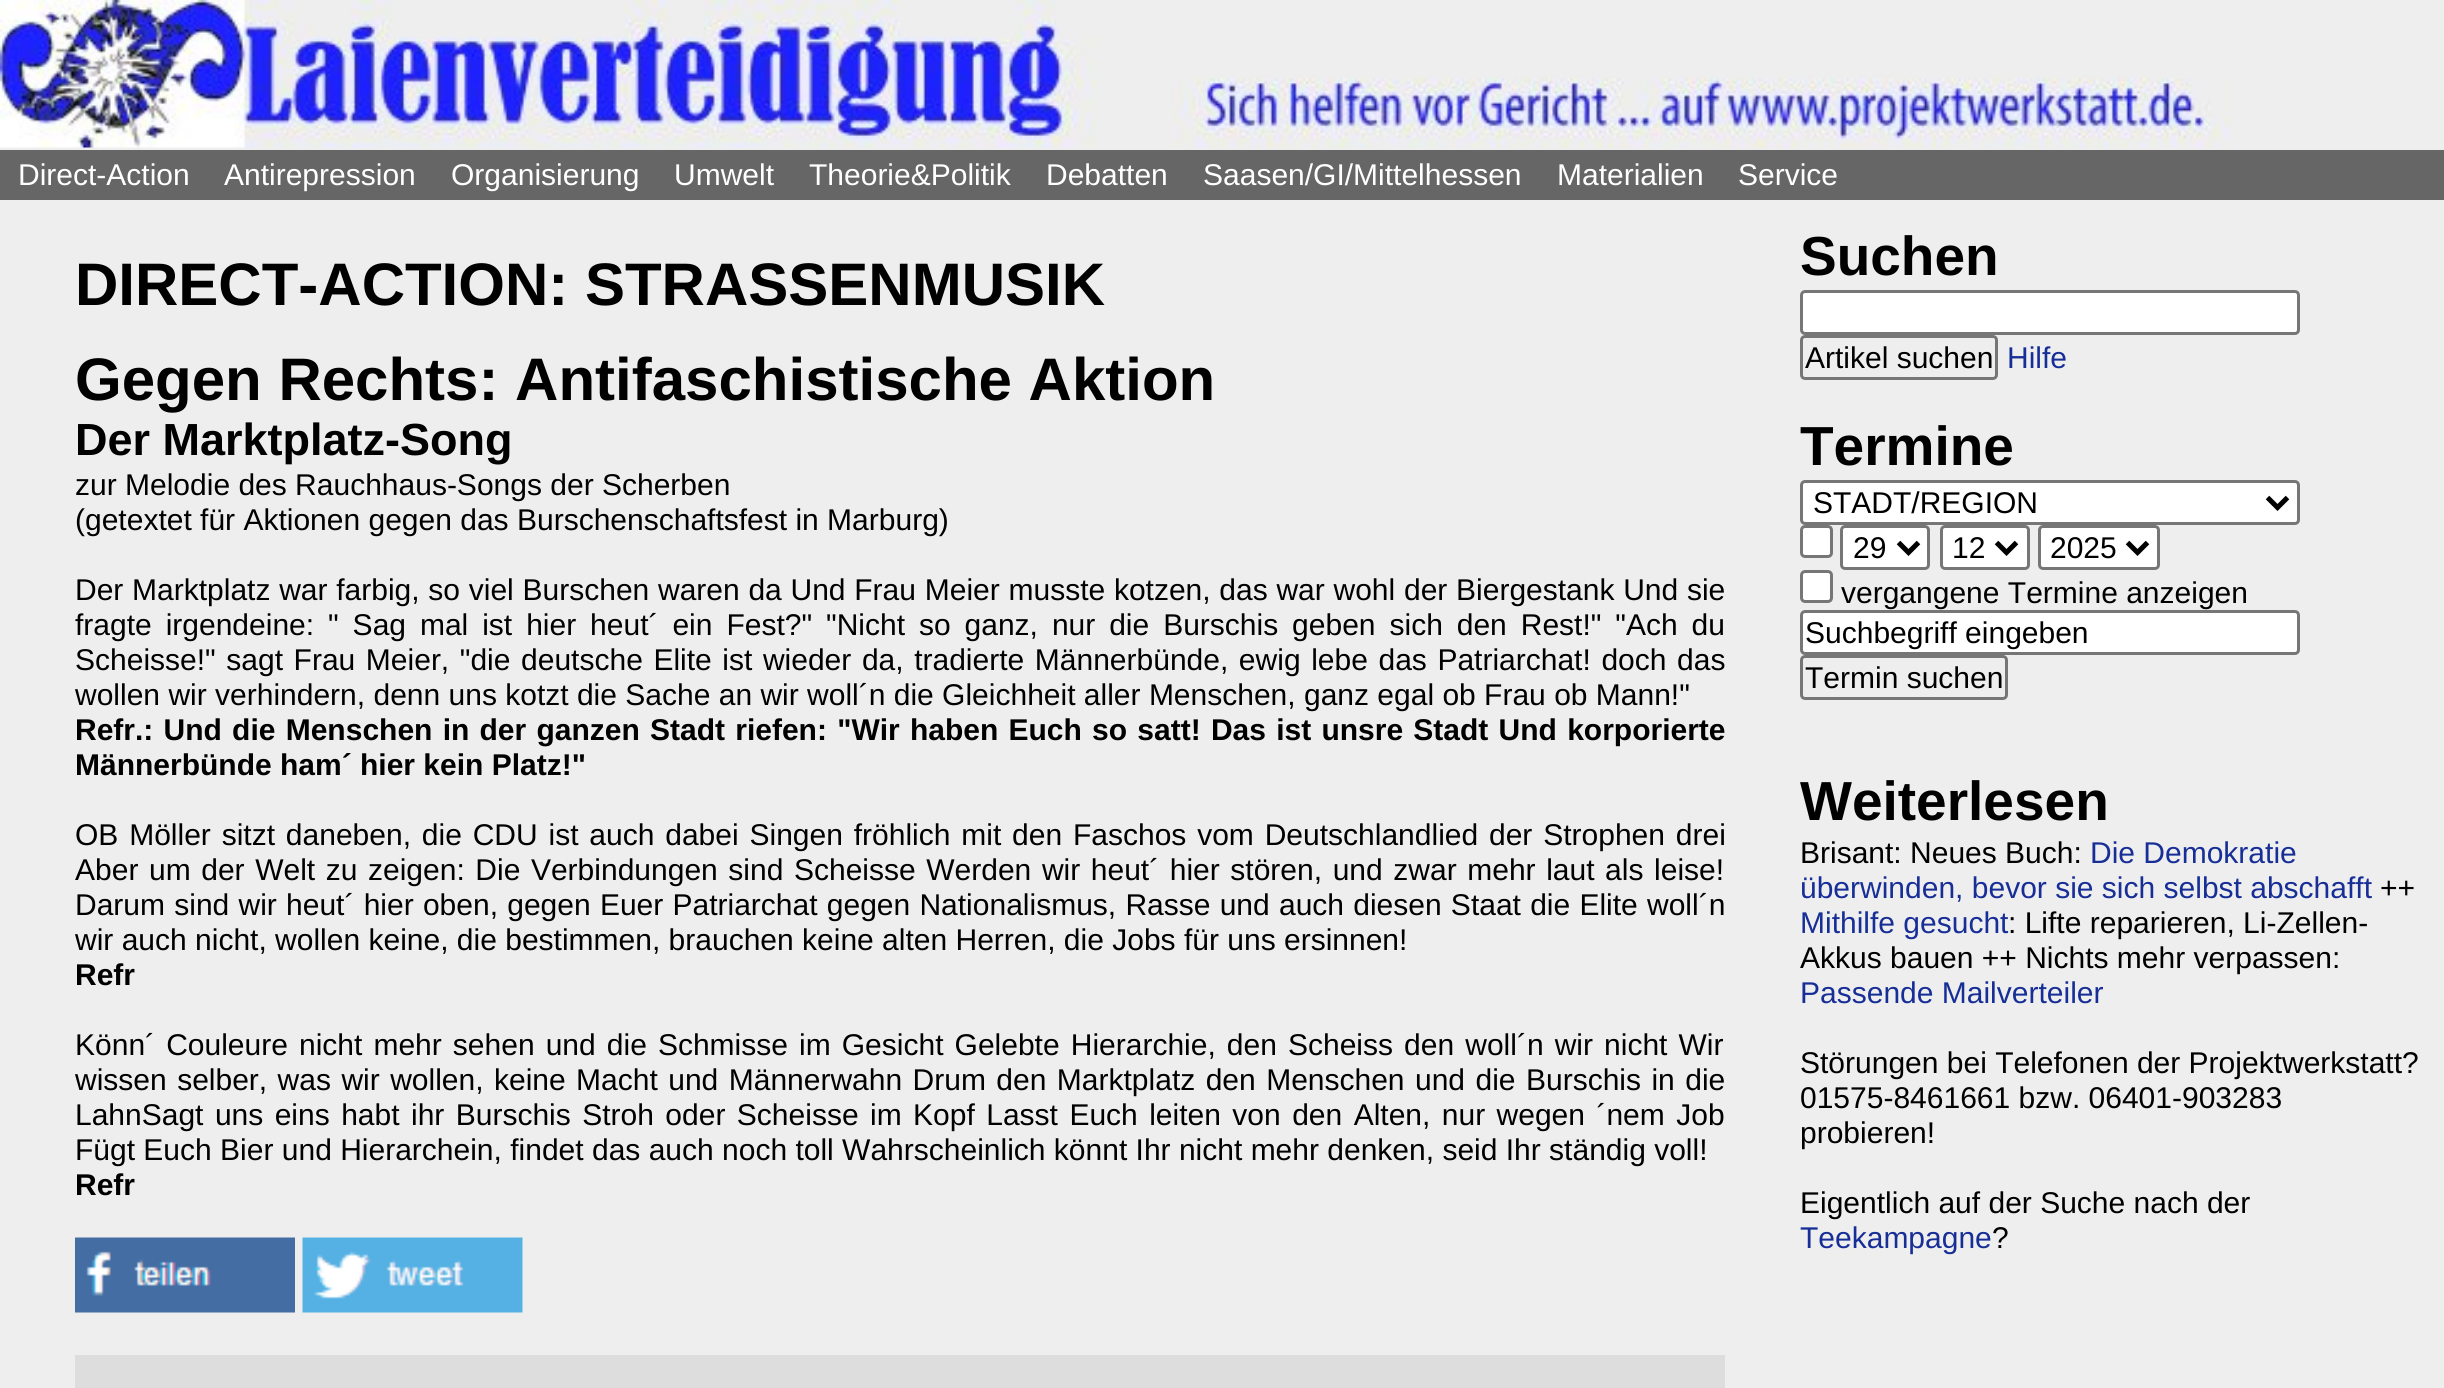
import math
import cairo

surface = cairo.ImageSurface(cairo.Format.RGB24, 2444, 1388)
ctx = cairo.Context(surface)
options = cairo.FontOptions()
options.set_hint_metrics(cairo.HintMetrics.OFF)
options.set_hint_style(cairo.HintStyle.NONE)
ctx.set_font_options(options)
ctx.set_miter_limit(4)


def ink(r, g, b):
    ctx.set_source_rgb(r / 255, g / 255, b / 255)


def write(x, y, s, family, size, color, bold=False, italic=False):
    ctx.select_font_face(family, cairo.FontSlant.ITALIC if italic else cairo.FontSlant.NORMAL, cairo.FontWeight.BOLD if bold else cairo.FontWeight.NORMAL)
    ctx.set_font_size(size)
    ink(*color)
    ctx.move_to(x, y)
    ctx.show_text(s)


def write_spaced(x, y, s, letter, word):
    ctx.move_to(x, y)
    for ch in s:
        ctx.show_text(ch)
        ctx.rel_move_to(letter + word * (ch == ' '), 0)


def block(x, y, w, h, *color):
    ink(*color)
    ctx.rectangle(x, y, w, h)
    ctx.fill()


def round_path(x, y, w, h, r):
    ctx.new_sub_path()
    for i, (u, v) in enumerate([(x + w - r, y + h - r), (x + r, y + h - r), (x + r, y + r), (x + w - r, y + r)]):
        ctx.arc(u, v, r, i * math.pi / 2, (i + 1) * math.pi / 2)
    ctx.close_path()


def paste(path, x, y, w, h):
    ctx.save()
    ctx.set_source_surface(cairo.ImageSurface.create_from_png(path), x, y)
    ctx.rectangle(x, y, w, h)
    ctx.fill()
    ctx.restore()


s1 = dict(family="Liberation Sans", size=30, color=(255, 255, 255))
s2 = dict(family="Liberation Sans", size=60, color=(0, 0, 0), bold=True)
s3 = dict(family="Liberation Sans", size=45, color=(0, 0, 0), bold=True)
s4 = dict(family="Liberation Sans", size=30, color=(0, 0, 0))
s5 = dict(family="Liberation Sans", size=30, color=(0, 0, 0), bold=True)
s6 = dict(family="Liberation Sans", size=55, color=(0, 0, 0), bold=True)
s7 = dict(family="Liberation Sans", size=30, color=(23, 46, 151))

ink(238, 238, 238)
ctx.paint()
paste("pic1.png", 0, 0, 2231, 148)
block(0, 150, 2444, 50, 102, 102, 102)
write(18, 185, "Direct-Action", **s1)
write(224, 185, "Antirepression", **s1)
write(451, 185, "Organisierung", **s1)
write(674, 185, "Umwelt", **s1)
write(809, 185, "Theorie&Politik", **s1)
write(1046, 185, "Debatten", **s1)
write(1203, 185, "Saasen/GI/Mittelhessen", **s1)
write(1557, 185, "Materialien", **s1)
write(1738, 185, "Service", **s1)
write(75, 305, "DIRECT-ACTION: STRASSENMUSIK", **s2)
write(75, 400, "Gegen Rechts: Antifaschistische Aktion", **s2)
write(75, 455, "Der Marktplatz-Song", **s3)
write(75, 495, "zur Melodie des Rauchhaus-Songs der Scherben", **s4)
write(75, 530, "(getextet für Aktionen gegen das Burschenschaftsfest in Marburg)", **s4)
write_spaced(75, 600, "Der Marktplatz war farbig, so viel Burschen waren da Und Frau Meier musste kotzen, das war wohl der Biergestank Und sie", 0, 0.4)
write_spaced(75, 635, "fragte irgendeine: \" Sag mal ist hier heut´ ein Fest?\" \"Nicht so ganz, nur die Burschis geben sich den Rest!\" \"Ach du", 0, 5.6)
write_spaced(75, 670, "Scheisse!\" sagt Frau Meier, \"die deutsche Elite ist wieder da, tradierte Männerbünde, ewig lebe das Patriarchat! doch das", 0, 2.25)
write(75, 705, "wollen wir verhindern, denn uns kotzt die Sache an wir woll´n die Gleichheit aller Menschen, ganz egal ob Frau ob Mann!\"", **s4)
ctx.select_font_face("Liberation Sans", cairo.FontSlant.NORMAL, cairo.FontWeight.BOLD)
write_spaced(75, 740, "Refr.: Und die Menschen in der ganzen Stadt riefen: \"Wir haben Euch so satt! Das ist unsre Stadt Und korporierte", 0, 1.9)
write(75, 775, "Männerbünde ham´ hier kein Platz!\"", **s5)
ctx.select_font_face("Liberation Sans")
write_spaced(75, 845, "OB Möller sitzt daneben, die CDU ist auch dabei Singen fröhlich mit den Faschos vom Deutschlandlied der Strophen drei", 0, 2.5)
write_spaced(75, 880, "Aber um der Welt zu zeigen: Die Verbindungen sind Scheisse Werden wir heut´ hier stören, und zwar mehr laut als leise!", 0, 2.25)
write_spaced(75, 915, "Darum sind wir heut´ hier oben, gegen Euer Patriarchat gegen Nationalismus, Rasse und auch diesen Staat die Elite woll´n", 0, 0.9)
write(75, 950, "wir auch nicht, wollen keine, die bestimmen, brauchen keine alten Herren, die Jobs für uns ersinnen!", **s4)
write(75, 985, "Refr", **s5)
ctx.select_font_face("Liberation Sans")
write_spaced(75, 1055, "Könn´ Couleure nicht mehr sehen und die Schmisse im Gesicht Gelebte Hierarchie, den Scheiss den woll´n wir nicht Wir", 0, 2.75)
write_spaced(75, 1090, "wissen selber, was wir wollen, keine Macht und Männerwahn Drum den Marktplatz den Menschen und die Burschis in die", 0, 2.1)
write_spaced(75, 1125, "LahnSagt uns eins habt ihr Burschis Stroh oder Scheisse im Kopf Lasst Euch leiten von den Alten, nur wegen ´nem Job", 0, 3.1)
write(75, 1160, "Fügt Euch Bier und Hierarchein, findet das auch noch toll Wahrscheinlich könnt Ihr nicht mehr denken, seid Ihr ständig voll!", **s4)
write(75, 1195, "Refr", **s5)
paste("pic2.png", 75, 1237, 220, 76)
paste("pic3.png", 302, 1237, 221, 76)
block(75, 1355, 1650, 33, 221, 221, 221)
write(1800, 275, "Suchen", **s6)
ink(255, 255, 255)
round_path(1801.5, 291.5, 497, 42, 3.5)
ctx.fill_preserve()
ink(118, 118, 118)
ctx.set_line_width(3)
ctx.stroke()
round_path(1801.5, 336.5, 195, 42, 3.5)
ctx.stroke()
write(1805, 368, "Artikel suchen", **s4)
write(2007, 368, "Hilfe", **s7)
write(1800, 465, "Termine", **s6)
ink(255, 255, 255)
round_path(1801.5, 481.5, 497, 42, 3.5)
ctx.fill_preserve()
ink(118, 118, 118)
ctx.stroke()
ctx.new_path()
ctx.move_to(2267.5, 497.5)
ctx.line_to(2277.5, 507.5)
ctx.line_to(2287.5, 497.5)
ink(0, 0, 0)
ctx.set_line_width(5)
ctx.stroke()
write(1813, 513, "STADT/REGION", **s4)
ink(255, 255, 255)
round_path(1801.5, 526.5, 30, 30, 3.5)
ctx.fill_preserve()
ink(118, 118, 118)
ctx.set_line_width(3)
ctx.stroke()
ink(255, 255, 255)
round_path(1841.5, 526.5, 87, 42, 3.5)
ctx.fill_preserve()
ink(118, 118, 118)
ctx.stroke()
ctx.new_path()
ctx.move_to(1898.5, 542.5)
ctx.line_to(1908.5, 552.5)
ctx.line_to(1918.5, 542.5)
ink(0, 0, 0)
ctx.set_line_width(5)
ctx.stroke()
write(1853, 558, "29", **s4)
ink(255, 255, 255)
round_path(1941.5, 526.5, 87, 42, 3.5)
ctx.fill_preserve()
ink(118, 118, 118)
ctx.set_line_width(3)
ctx.stroke()
ctx.new_path()
ctx.move_to(1996.5, 542.5)
ctx.line_to(2006.5, 552.5)
ctx.line_to(2016.5, 542.5)
ink(0, 0, 0)
ctx.set_line_width(5)
ctx.stroke()
write(1952, 558, "12", **s4)
ink(255, 255, 255)
round_path(2039.5, 526.5, 119, 42, 3.5)
ctx.fill_preserve()
ink(118, 118, 118)
ctx.set_line_width(3)
ctx.stroke()
ctx.new_path()
ctx.move_to(2127.5, 542.5)
ctx.line_to(2137.5, 552.5)
ctx.line_to(2147.5, 542.5)
ink(0, 0, 0)
ctx.set_line_width(5)
ctx.stroke()
write(2050, 558, "2025", **s4)
ink(255, 255, 255)
round_path(1801.5, 571.5, 30, 30, 3.5)
ctx.fill_preserve()
ink(118, 118, 118)
ctx.set_line_width(3)
ctx.stroke()
write(1841, 603, "vergangene Termine anzeigen", **s4)
ink(255, 255, 255)
round_path(1801.5, 611.5, 497, 42, 3.5)
ctx.fill_preserve()
ink(118, 118, 118)
ctx.stroke()
write(1805, 643, "Suchbegriff eingeben", **s4)
round_path(1801.5, 656.5, 205, 42, 3.5)
ink(118, 118, 118)
ctx.stroke()
write(1805, 688, "Termin suchen", **s4)
write(1800, 820, "Weiterlesen", **s6)
write(1800, 863, "Brisant: Neues Buch:", **s4)
write(2090, 863, "Die Demokratie", **s7)
write(1800, 898, "überwinden, bevor sie sich selbst abschafft", **s7)
write(2380, 898, "++", **s4)
write(1800, 933, "Mithilfe gesucht", **s7)
write(2008, 933, ": Lifte reparieren, Li-Zellen-", **s4)
write(1800, 968, "Akkus bauen ++ Nichts mehr verpassen:", **s4)
write(1800, 1003, "Passende Mailverteiler", **s7)
write(1800, 1073, "Störungen bei Telefonen der Projektwerkstatt?", **s4)
write(1800, 1108, "01575-8461661 bzw. 06401-903283", **s4)
write(1800, 1143, "probieren!", **s4)
write(1800, 1213, "Eigentlich auf der Suche nach der", **s4)
write(1800, 1248, "Teekampagne", **s7)
write(1992, 1248, "?", **s4)
surface.write_to_png("screenshot.png")
